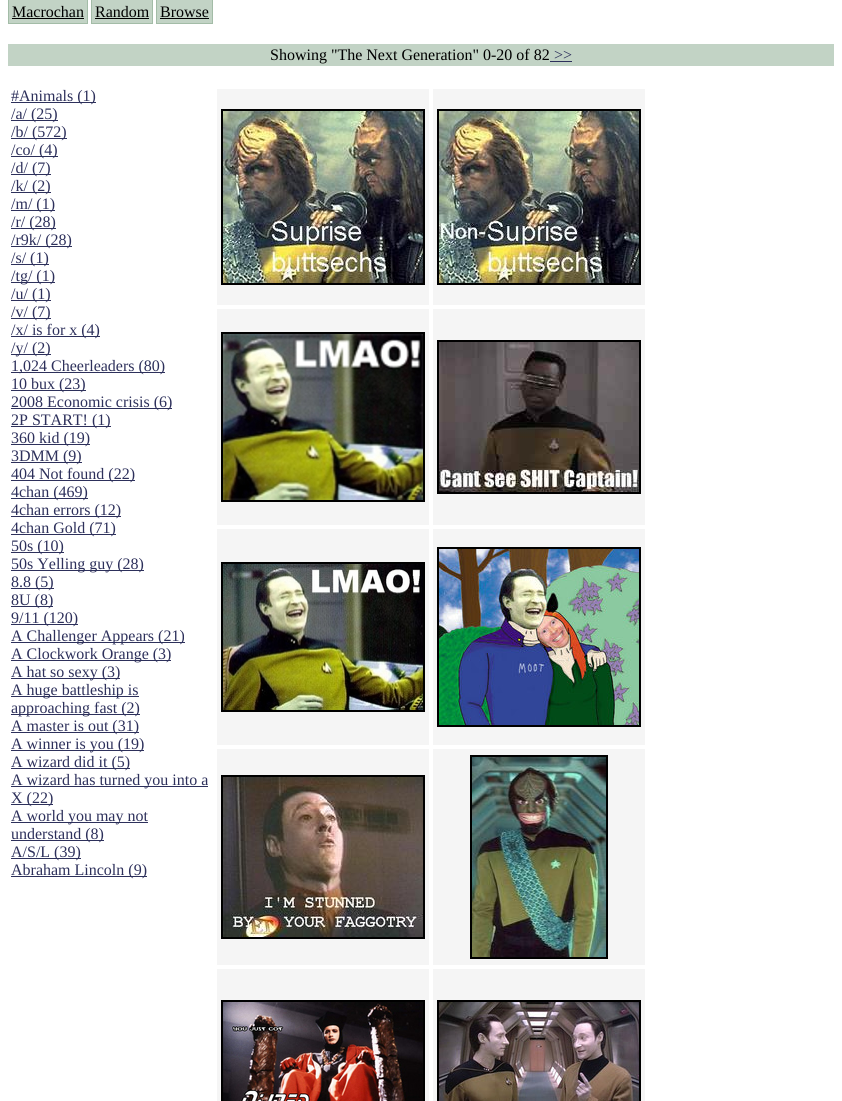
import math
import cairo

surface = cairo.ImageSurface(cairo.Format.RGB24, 842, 1101)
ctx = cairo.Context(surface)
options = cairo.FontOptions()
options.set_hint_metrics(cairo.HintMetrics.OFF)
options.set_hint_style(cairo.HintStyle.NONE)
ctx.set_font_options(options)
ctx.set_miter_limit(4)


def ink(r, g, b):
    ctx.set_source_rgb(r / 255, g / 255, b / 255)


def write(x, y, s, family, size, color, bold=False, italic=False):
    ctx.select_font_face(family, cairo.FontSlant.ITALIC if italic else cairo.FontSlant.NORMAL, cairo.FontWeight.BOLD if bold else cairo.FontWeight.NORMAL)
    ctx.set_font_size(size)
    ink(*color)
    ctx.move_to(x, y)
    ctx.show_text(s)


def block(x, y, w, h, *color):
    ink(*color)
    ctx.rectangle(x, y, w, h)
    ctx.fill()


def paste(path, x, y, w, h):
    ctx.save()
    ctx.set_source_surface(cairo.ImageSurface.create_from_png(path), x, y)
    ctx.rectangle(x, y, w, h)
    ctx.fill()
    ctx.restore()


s1 = dict(family="Liberation Serif", size=16, color=(0, 0, 0))
s2 = dict(family="Liberation Serif", size=16, color=(45, 48, 91))

ink(255, 255, 255)
ctx.paint()
ink(194, 211, 197)
ctx.rectangle(8.5, -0.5, 79, 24)
ctx.fill_preserve()
ink(163, 188, 167)
ctx.set_line_width(1)
ctx.stroke()
write(12, 17, "Macrochan", **s1)
block(12, 18, 72, 1, 0, 0, 0)
ink(194, 211, 197)
ctx.rectangle(91.5, -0.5, 61, 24)
ctx.fill_preserve()
ink(163, 188, 167)
ctx.stroke()
write(95, 17, "Random", **s1)
block(95, 18, 54, 1, 0, 0, 0)
ink(194, 211, 197)
ctx.rectangle(156.5, -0.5, 56, 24)
ctx.fill_preserve()
ink(163, 188, 167)
ctx.stroke()
write(160, 17, "Browse", **s1)
block(160, 18, 49, 1, 0, 0, 0)
block(8, 44, 826, 22, 194, 211, 197)
write(270, 60, "Showing \"The Next Generation\" 0-20 of 82", **s1)
write(554, 60, ">>", **s2)
block(550, 61, 22, 1, 45, 48, 91)
block(11, 102, 85, 1, 45, 48, 91)
write(11, 101, "#Animals (1)", **s2)
block(11, 120, 47, 1, 45, 48, 91)
write(11, 119, "/a/ (25)", **s2)
block(11, 138, 56, 1, 45, 48, 91)
write(11, 137, "/b/ (572)", **s2)
block(11, 156, 47, 1, 45, 48, 91)
write(11, 155, "/co/ (4)", **s2)
block(11, 174, 40, 1, 45, 48, 91)
write(11, 173, "/d/ (7)", **s2)
block(11, 192, 40, 1, 45, 48, 91)
write(11, 191, "/k/ (2)", **s2)
block(11, 210, 44, 1, 45, 48, 91)
write(11, 209, "/m/ (1)", **s2)
block(11, 228, 45, 1, 45, 48, 91)
write(11, 227, "/r/ (28)", **s2)
block(11, 246, 61, 1, 45, 48, 91)
write(11, 245, "/r9k/ (28)", **s2)
block(11, 264, 38, 1, 45, 48, 91)
write(11, 263, "/s/ (1)", **s2)
block(11, 282, 44, 1, 45, 48, 91)
write(11, 281, "/tg/ (1)", **s2)
block(11, 300, 40, 1, 45, 48, 91)
write(11, 299, "/u/ (1)", **s2)
block(11, 318, 40, 1, 45, 48, 91)
write(11, 317, "/v/ (7)", **s2)
block(11, 336, 89, 1, 45, 48, 91)
write(11, 335, "/x/ is for x (4)", **s2)
block(11, 354, 40, 1, 45, 48, 91)
write(11, 353, "/y/ (2)", **s2)
block(11, 372, 154, 1, 45, 48, 91)
write(11, 371, "1,024 Cheerleaders (80)", **s2)
block(11, 390, 75, 1, 45, 48, 91)
write(11, 389, "10 bux (23)", **s2)
block(11, 408, 161, 1, 45, 48, 91)
write(11, 407, "2008 Economic crisis (6)", **s2)
block(11, 426, 100, 1, 45, 48, 91)
write(11, 425, "2P START! (1)", **s2)
block(11, 444, 79, 1, 45, 48, 91)
write(11, 443, "360 kid (19)", **s2)
block(11, 462, 71, 1, 45, 48, 91)
write(11, 461, "3DMM (9)", **s2)
block(11, 480, 124, 1, 45, 48, 91)
write(11, 479, "404 Not found (22)", **s2)
block(11, 498, 77, 1, 45, 48, 91)
write(11, 497, "4chan (469)", **s2)
block(11, 516, 110, 1, 45, 48, 91)
write(11, 515, "4chan errors (12)", **s2)
block(11, 534, 105, 1, 45, 48, 91)
write(11, 533, "4chan Gold (71)", **s2)
block(11, 552, 53, 1, 45, 48, 91)
write(11, 551, "50s (10)", **s2)
block(11, 570, 133, 1, 45, 48, 91)
write(11, 569, "50s Yelling guy (28)", **s2)
block(11, 588, 43, 1, 45, 48, 91)
write(11, 587, "8.8 (5)", **s2)
block(11, 606, 42, 1, 45, 48, 91)
write(11, 605, "8U (8)", **s2)
block(11, 624, 67, 1, 45, 48, 91)
write(11, 623, "9/11 (120)", **s2)
block(11, 642, 174, 1, 45, 48, 91)
write(11, 641, "A Challenger Appears (21)", **s2)
block(11, 660, 160, 1, 45, 48, 91)
write(11, 659, "A Clockwork Orange (3)", **s2)
block(11, 678, 109, 1, 45, 48, 91)
write(11, 677, "A hat so sexy (3)", **s2)
block(11, 696, 128, 1, 45, 48, 91)
write(11, 695, "A huge battleship is", **s2)
block(11, 714, 129, 1, 45, 48, 91)
write(11, 713, "approaching fast (2)", **s2)
block(11, 732, 128, 1, 45, 48, 91)
write(11, 731, "A master is out (31)", **s2)
block(11, 750, 133, 1, 45, 48, 91)
write(11, 749, "A winner is you (19)", **s2)
block(11, 768, 119, 1, 45, 48, 91)
write(11, 767, "A wizard did it (5)", **s2)
block(11, 786, 197, 1, 45, 48, 91)
write(11, 785, "A wizard has turned you into a", **s2)
block(11, 804, 42, 1, 45, 48, 91)
write(11, 803, "X (22)", **s2)
block(11, 822, 137, 1, 45, 48, 91)
write(11, 821, "A world you may not", **s2)
block(11, 840, 93, 1, 45, 48, 91)
write(11, 839, "understand (8)", **s2)
block(11, 858, 70, 1, 45, 48, 91)
write(11, 857, "A/S/L (39)", **s2)
block(11, 876, 136, 1, 45, 48, 91)
write(11, 875, "Abraham Lincoln (9)", **s2)
block(217, 89, 212, 216, 245, 245, 245)
ctx.rectangle(222, 110, 202, 174)
ink(0, 0, 0)
ctx.set_line_width(2)
ctx.stroke()
paste("pic1.png", 223, 111, 200, 172)
block(433, 89, 212, 216, 245, 245, 245)
ctx.rectangle(438, 110, 202, 174)
ink(0, 0, 0)
ctx.stroke()
paste("pic2.png", 439, 111, 200, 172)
block(217, 309, 212, 216, 245, 245, 245)
ctx.rectangle(222, 333, 202, 168)
ink(0, 0, 0)
ctx.stroke()
paste("pic3.png", 223, 334, 200, 166)
block(433, 309, 212, 216, 245, 245, 245)
ctx.rectangle(438, 341, 202, 152)
ink(0, 0, 0)
ctx.stroke()
paste("pic4.png", 439, 342, 200, 150)
block(217, 529, 212, 216, 245, 245, 245)
ctx.rectangle(222, 563, 202, 148)
ink(0, 0, 0)
ctx.stroke()
paste("pic5.png", 223, 564, 200, 146)
block(433, 529, 212, 216, 245, 245, 245)
ctx.rectangle(438, 548, 202, 178)
ink(0, 0, 0)
ctx.stroke()
paste("pic6.png", 439, 549, 200, 176)
block(217, 749, 212, 216, 245, 245, 245)
ctx.rectangle(222, 776, 202, 162)
ink(0, 0, 0)
ctx.stroke()
paste("pic7.png", 223, 777, 200, 160)
block(433, 749, 212, 216, 245, 245, 245)
ctx.rectangle(471, 756, 136, 202)
ink(0, 0, 0)
ctx.stroke()
paste("pic8.png", 472, 757, 134, 200)
block(217, 969, 212, 132, 245, 245, 245)
ctx.rectangle(222, 1001, 202, 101)
ink(0, 0, 0)
ctx.stroke()
paste("pic9.png", 223, 1002, 200, 99)
block(433, 969, 212, 132, 245, 245, 245)
ctx.rectangle(438, 1001, 202, 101)
ink(0, 0, 0)
ctx.stroke()
paste("pic10.png", 439, 1002, 200, 99)
surface.write_to_png("screenshot.png")
